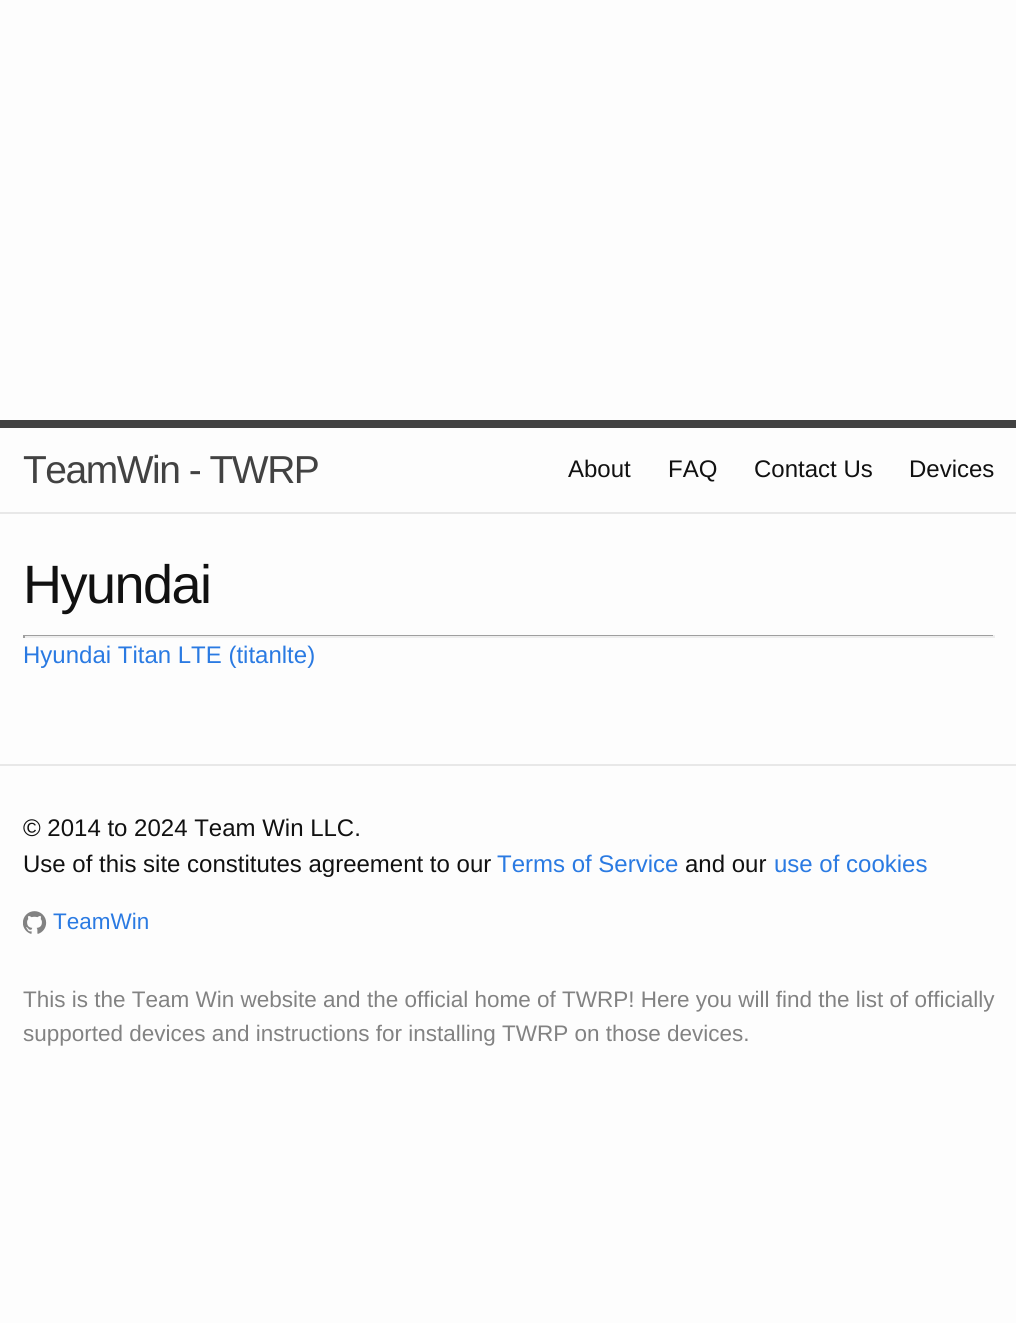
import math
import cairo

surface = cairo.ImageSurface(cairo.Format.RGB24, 1016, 1323)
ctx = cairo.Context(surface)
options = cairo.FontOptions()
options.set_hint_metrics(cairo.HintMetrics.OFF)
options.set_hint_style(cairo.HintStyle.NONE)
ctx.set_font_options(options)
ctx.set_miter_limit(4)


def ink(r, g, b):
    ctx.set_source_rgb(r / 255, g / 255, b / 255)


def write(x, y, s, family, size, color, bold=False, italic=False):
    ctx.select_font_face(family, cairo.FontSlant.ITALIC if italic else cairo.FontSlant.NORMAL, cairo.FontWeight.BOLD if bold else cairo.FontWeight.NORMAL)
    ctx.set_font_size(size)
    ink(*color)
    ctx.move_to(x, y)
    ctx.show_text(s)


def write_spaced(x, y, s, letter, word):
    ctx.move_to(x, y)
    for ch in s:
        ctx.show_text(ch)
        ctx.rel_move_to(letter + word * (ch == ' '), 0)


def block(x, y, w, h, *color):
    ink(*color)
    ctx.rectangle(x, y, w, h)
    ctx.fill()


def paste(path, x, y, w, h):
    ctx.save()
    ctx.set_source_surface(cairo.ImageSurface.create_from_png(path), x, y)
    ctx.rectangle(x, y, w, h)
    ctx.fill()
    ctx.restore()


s1 = dict(family="Liberation Sans", size=24, color=(17, 17, 17))
s2 = dict(family="Liberation Sans", size=24, color=(42, 122, 226))
s3 = dict(family="Liberation Sans", size=22.5, color=(42, 122, 226))
s4 = dict(family="Liberation Sans", size=22.5, color=(130, 130, 130))

ink(253, 253, 253)
ctx.paint()
block(0, 420, 1016, 8, 66, 66, 66)
block(0, 512, 1016, 2, 232, 232, 232)
ctx.select_font_face("Liberation Sans")
ctx.set_font_size(39)
ink(66, 66, 66)
write_spaced(23, 483, "TeamWin - TWRP", -1.5, 0)
write(568, 477, "About", **s1)
write(668, 477, "FAQ", **s1)
write(754, 477, "Contact Us", **s1)
write(909, 477, "Devices", **s1)
ctx.set_font_size(54)
write_spaced(23, 603, "Hyundai", -1.5, 0)
block(23, 635, 972, 1, 159, 159, 159)
block(993, 635, 2, 3, 238, 238, 238)
block(23, 636, 972, 2, 238, 238, 238)
block(23, 635, 2, 3, 159, 159, 159)
write(23, 663, "Hyundai Titan LTE (titanlte)", **s2)
block(0, 764, 1016, 2, 232, 232, 232)
write(23, 836, "© 2014 to 2024 Team Win LLC.", **s1)
write(23, 872, "Use of this site constitutes agreement to our", **s1)
write(497, 872, "Terms of Service", **s2)
write(685, 872, "and our", **s1)
write(774, 872, "use of cookies", **s2)
paste("pic1.png", 23, 911, 24, 23)
write(53, 929, "TeamWin", **s3)
write(23, 1007, "This is the Team Win website and the official home of TWRP! Here you will find the list of officially", **s4)
write(23, 1041, "supported devices and instructions for installing TWRP on those devices.", **s4)
surface.write_to_png("screenshot.png")
